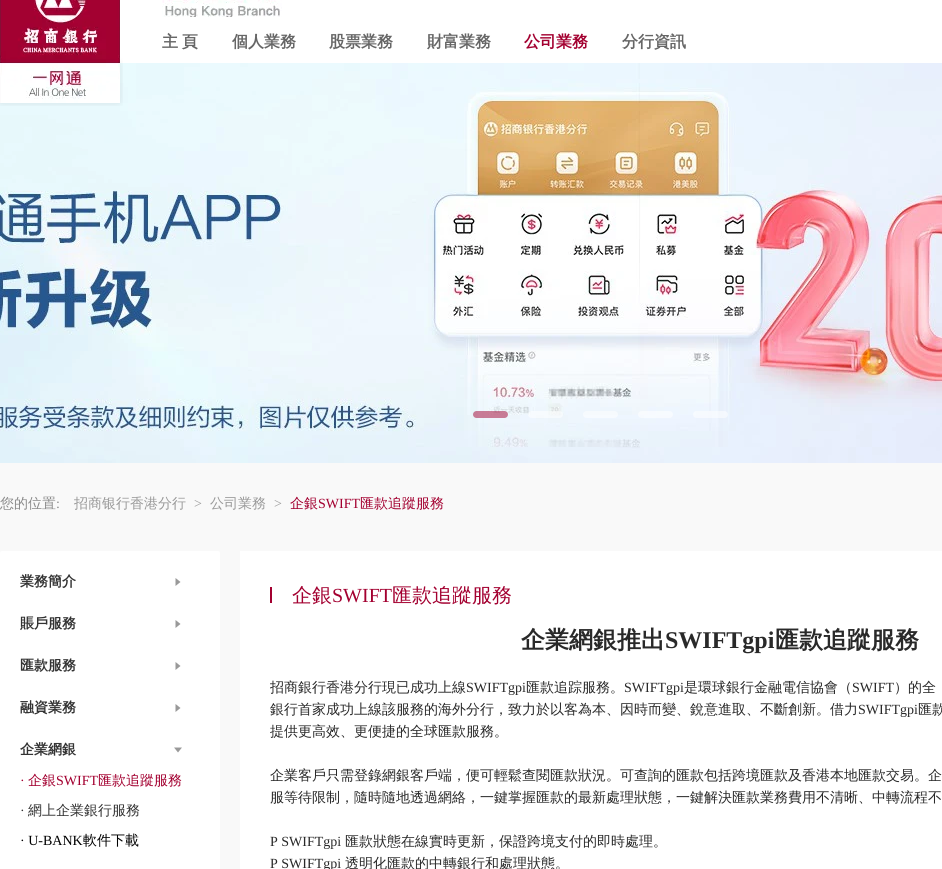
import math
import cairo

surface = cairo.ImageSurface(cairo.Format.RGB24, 942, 869)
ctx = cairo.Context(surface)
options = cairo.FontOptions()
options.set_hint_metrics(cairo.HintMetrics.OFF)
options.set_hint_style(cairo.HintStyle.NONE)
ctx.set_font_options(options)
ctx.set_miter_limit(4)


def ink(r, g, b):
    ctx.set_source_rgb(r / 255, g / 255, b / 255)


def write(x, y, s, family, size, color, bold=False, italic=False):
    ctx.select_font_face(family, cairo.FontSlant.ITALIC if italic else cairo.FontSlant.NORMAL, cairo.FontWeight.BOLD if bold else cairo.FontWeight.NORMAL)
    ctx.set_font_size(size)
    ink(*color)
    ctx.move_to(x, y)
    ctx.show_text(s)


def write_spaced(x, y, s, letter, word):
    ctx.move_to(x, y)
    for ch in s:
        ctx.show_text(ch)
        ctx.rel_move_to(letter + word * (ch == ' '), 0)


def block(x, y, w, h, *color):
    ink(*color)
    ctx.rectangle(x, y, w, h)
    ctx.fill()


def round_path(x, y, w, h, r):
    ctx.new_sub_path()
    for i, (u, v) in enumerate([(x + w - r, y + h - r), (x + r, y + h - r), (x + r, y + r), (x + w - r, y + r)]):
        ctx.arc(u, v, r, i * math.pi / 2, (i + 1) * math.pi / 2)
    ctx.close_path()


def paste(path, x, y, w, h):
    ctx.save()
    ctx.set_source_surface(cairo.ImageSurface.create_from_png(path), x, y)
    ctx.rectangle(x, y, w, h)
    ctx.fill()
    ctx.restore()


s1 = dict(family="WenQuanYi Zen Hei", size=16, color=(102, 102, 102), bold=True)
s2 = dict(family="WenQuanYi Zen Hei", size=16, color=(163, 0, 48), bold=True)
s3 = dict(family="WenQuanYi Zen Hei Medium", size=14, color=(137, 137, 137))
s4 = dict(family="Liberation Serif", size=14, color=(137, 137, 137))
s5 = dict(family="WenQuanYi Zen Hei Medium", size=14, color=(153, 153, 153))
s6 = dict(family="Liberation Serif", size=14, color=(153, 153, 153))
s7 = dict(family="WenQuanYi Zen Hei Medium", size=14, color=(163, 0, 48))
s8 = dict(family="Liberation Serif", size=14, color=(163, 0, 48))
s9 = dict(family="WenQuanYi Zen Hei", size=14, color=(51, 51, 51), bold=True)
s10 = dict(family="Liberation Serif", size=14, color=(51, 51, 51))
s11 = dict(family="WenQuanYi Zen Hei Medium", size=14, color=(51, 51, 51))
s12 = dict(family="Liberation Serif", size=14, color=(0, 0, 0))
s13 = dict(family="WenQuanYi Zen Hei Medium", size=14, color=(0, 0, 0))
s14 = dict(family="WenQuanYi Zen Hei Medium", size=20, color=(163, 0, 48))
s15 = dict(family="Liberation Serif", size=20, color=(163, 0, 48))
s16 = dict(family="WenQuanYi Zen Hei", size=24, color=(41, 41, 41), bold=True)
s17 = dict(family="Liberation Serif", size=24, color=(41, 41, 41), bold=True)
s18 = dict(family="WenQuanYi Zen Hei Medium", size=14, color=(41, 41, 41))
s19 = dict(family="Liberation Serif", size=14, color=(41, 41, 41))

ink(255, 255, 255)
ctx.paint()
paste("pic3.png", 0, 63, 942, 400)
paste("pic1.png", 0, 0, 123, 106)
paste("pic2.png", 162, 0, 120, 17)
ctx.select_font_face("WenQuanYi Zen Hei", cairo.FontSlant.NORMAL, cairo.FontWeight.BOLD)
ctx.set_font_size(16)
ink(102, 102, 102)
write_spaced(162, 47, "主 頁", 0, -1)
write(232, 47, "個人業務", **s1)
write(329, 47, "股票業務", **s1)
write(427, 47, "財富業務", **s1)
write(524, 47, "公司業務", **s2)
write(622, 47, "分行資訊", **s1)
block(0, 463, 942, 406, 249, 249, 249)
ctx.set_source_rgba(0.639, 0, 0.188, 0.5)
round_path(473, 411, 35, 7, 3.5)
ctx.fill()
ctx.set_source_rgba(1, 1, 1, 0.5)
round_path(528, 411, 35, 7, 3.5)
ctx.fill()
round_path(583, 411, 35, 7, 3.5)
ctx.fill()
round_path(638, 411, 35, 7, 3.5)
ctx.fill()
round_path(693, 411, 35, 7, 3.5)
ctx.fill()
write(0, 508, "您的位置", **s3)
write(56, 508, ":", **s4)
write(74, 508, "招商银行香港分行", **s5)
write(194, 508, ">", **s6)
write(210, 508, "公司業務", **s5)
write(274, 508, ">", **s6)
write(290, 508, "企銀", **s7)
write(318, 508, "SWIFT", **s8)
write(360, 508, "匯款追蹤服務", **s7)
ink(255, 255, 255)
round_path(0, 551, 220, 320, 2)
ctx.fill()
write(20, 586, "業務簡介", **s9)
ink(153, 153, 153)
ctx.new_path()
ctx.move_to(180.5, 582)
ctx.line_to(175.5, 578)
ctx.line_to(175.5, 586)
ctx.close_path()
ctx.fill()
write(20, 628, "賬戶服務", **s9)
ink(153, 153, 153)
ctx.new_path()
ctx.move_to(180.5, 624)
ctx.line_to(175.5, 620)
ctx.line_to(175.5, 628)
ctx.close_path()
ctx.fill()
write(20, 670, "匯款服務", **s9)
ink(153, 153, 153)
ctx.new_path()
ctx.move_to(180.5, 666)
ctx.line_to(175.5, 662)
ctx.line_to(175.5, 670)
ctx.close_path()
ctx.fill()
write(20, 712, "融資業務", **s9)
ink(153, 153, 153)
ctx.new_path()
ctx.move_to(180.5, 708)
ctx.line_to(175.5, 704)
ctx.line_to(175.5, 712)
ctx.close_path()
ctx.fill()
write(20, 754, "企業網銀", **s9)
ink(153, 153, 153)
ctx.new_path()
ctx.move_to(178, 752.5)
ctx.line_to(182, 747.5)
ctx.line_to(174, 747.5)
ctx.close_path()
ctx.fill()
write(20, 785, "·", **s8)
write(28, 785, "企銀", **s7)
write(56, 785, "SWIFT", **s8)
write(98, 785, "匯款追蹤服務", **s7)
write(20, 815, "·", **s10)
write(28, 815, "網上企業銀行服務", **s11)
write(20, 845, "· U-BANK", **s12)
write(83, 845, "軟件下載", **s13)
block(240, 551, 702, 318, 255, 255, 255)
block(270, 587, 2, 16, 163, 0, 48)
write(292, 602, "企銀", **s14)
write(332, 602, "SWIFT", **s15)
write(392, 602, "匯款追蹤服務", **s14)
write(521, 648, "企業網銀推出", **s16)
write(665, 648, "SWIFTgpi", **s17)
write(775, 648, "匯款追蹤服務", **s16)
write(270, 692, "招商銀行香港分行現已成功上線", **s18)
write(466, 692, "SWIFTgpi", **s19)
write(526, 692, "匯款追踪服務。", **s18)
write(624, 692, "SWIFTgpi", **s19)
write(684, 692, "是環球銀行金融電信協會（", **s18)
write(852, 692, "SWIFT", **s19)
write(894, 692, "）的全", **s18)
write(270, 714, "銀行首家成功上線該服務的海外分行，致力於以客為本、因時而變、銳意進取、不斷創新。借力", **s18)
write(858, 714, "SWIFTgpi", **s19)
write(918, 714, "匯款", **s18)
write(270, 736, "提供更高效、更便捷的全球匯款服務。", **s18)
write(270, 780, "企業客戶只需登錄網銀客戶端，便可輕鬆查閱匯款狀況。可查詢的匯款包括跨境匯款及香港本地匯款交易。企", **s18)
write(270, 802, "服等待限制，隨時隨地透過網絡，一鍵掌握匯款的最新處理狀態，一鍵解決匯款業務費用不清晰、中轉流程不", **s18)
write(270, 846, "P SWIFTgpi", **s19)
write(345, 846, "匯款狀態在線實時更新，保證跨境支付的即時處理。", **s18)
write(270, 868, "P SWIFTgpi", **s19)
write(345, 868, "透明化匯款的中轉銀行和處理狀態。", **s18)
surface.write_to_png("screenshot.png")
